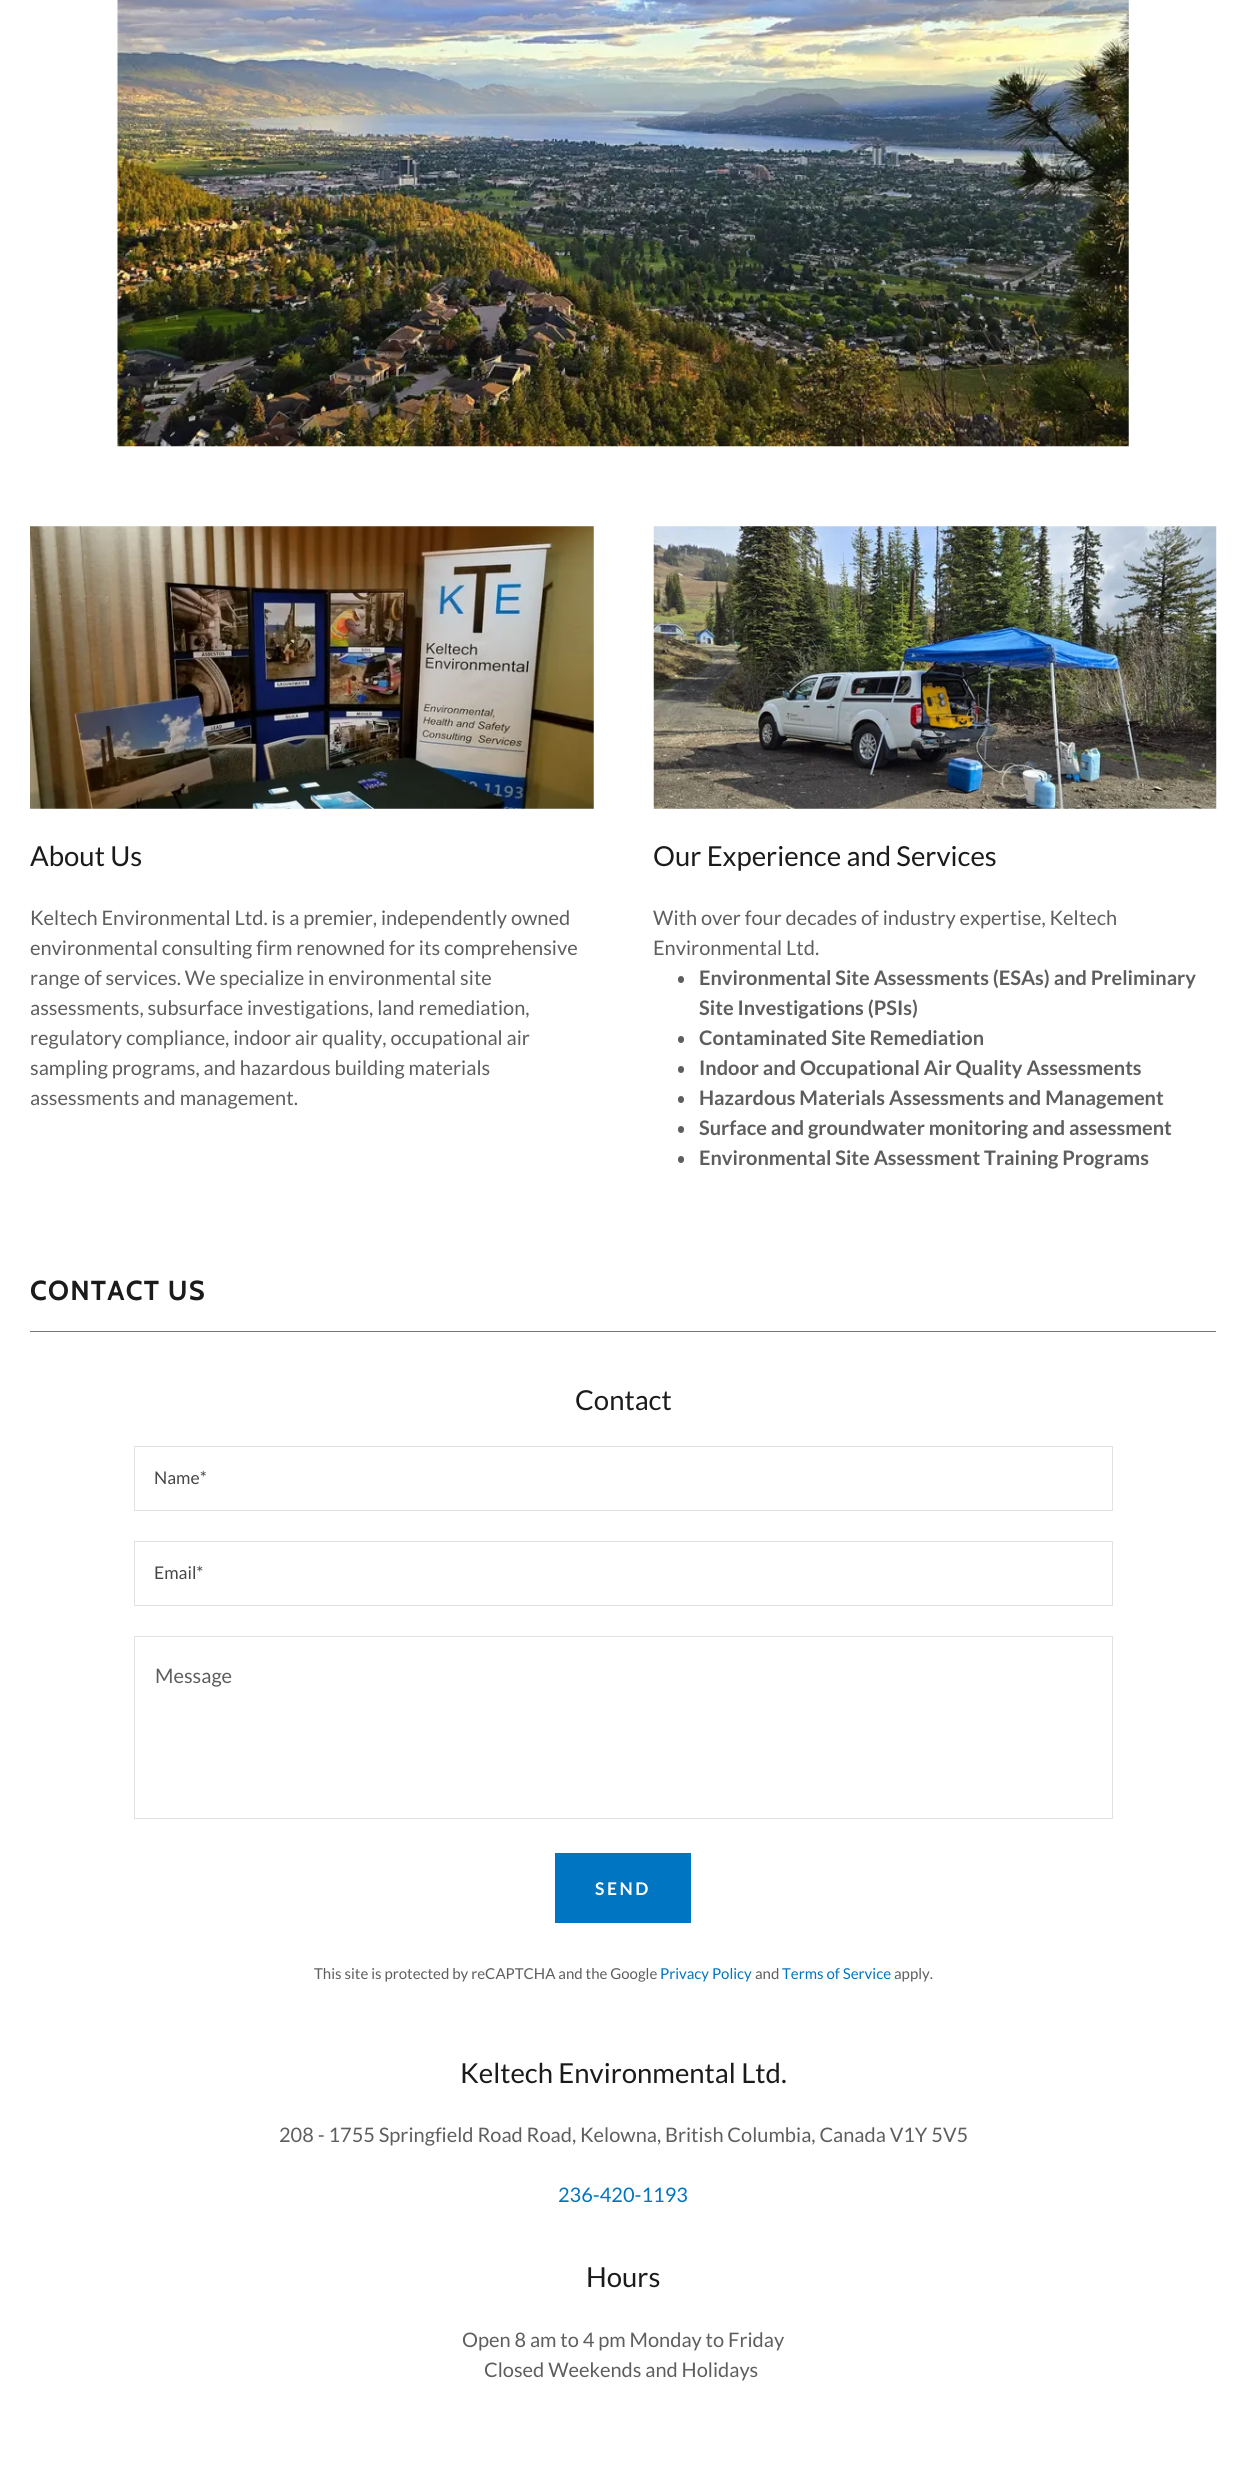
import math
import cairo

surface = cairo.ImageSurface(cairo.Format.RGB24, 1246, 2474)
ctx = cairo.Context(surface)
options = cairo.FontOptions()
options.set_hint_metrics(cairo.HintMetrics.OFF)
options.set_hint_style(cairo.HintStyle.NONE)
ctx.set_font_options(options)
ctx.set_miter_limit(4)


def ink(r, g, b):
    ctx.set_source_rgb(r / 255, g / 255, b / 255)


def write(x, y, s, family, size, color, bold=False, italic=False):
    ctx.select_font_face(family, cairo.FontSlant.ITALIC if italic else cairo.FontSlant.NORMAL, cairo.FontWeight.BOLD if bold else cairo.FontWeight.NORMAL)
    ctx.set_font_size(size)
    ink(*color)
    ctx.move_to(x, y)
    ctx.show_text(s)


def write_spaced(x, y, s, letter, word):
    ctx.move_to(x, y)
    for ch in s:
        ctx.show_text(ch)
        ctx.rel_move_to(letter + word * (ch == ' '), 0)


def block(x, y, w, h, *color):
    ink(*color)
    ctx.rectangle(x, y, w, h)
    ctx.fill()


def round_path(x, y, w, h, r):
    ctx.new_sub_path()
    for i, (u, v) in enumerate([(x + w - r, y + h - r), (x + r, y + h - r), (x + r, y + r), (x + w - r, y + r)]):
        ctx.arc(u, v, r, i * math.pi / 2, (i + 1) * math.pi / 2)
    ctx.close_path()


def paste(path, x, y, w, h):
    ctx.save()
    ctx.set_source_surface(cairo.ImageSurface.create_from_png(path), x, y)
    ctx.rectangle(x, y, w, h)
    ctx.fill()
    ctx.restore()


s1 = dict(family="Lato", size=27.5, color=(27, 27, 27))
s2 = dict(family="Lato", size=20, color=(94, 94, 94))
s3 = dict(family="Lato", size=20, color=(94, 94, 94), bold=True)
s4 = dict(family="Lato", size=17.5, color=(71, 71, 71))
s5 = dict(family="Lato", size=15, color=(94, 94, 94))
s6 = dict(family="Lato", size=15, color=(0, 117, 193))
s7 = dict(family="Lato", size=20, color=(0, 117, 193))

ink(255, 255, 255)
ctx.paint()
paste("pic1.png", 117, 0, 1012, 447)
paste("pic2.png", 30, 526, 564, 283)
write(30, 866, "About Us", **s1)
write(30, 925, "Keltech Environmental Ltd. is a premier, independently owned", **s2)
write(30, 955, "environmental consulting firm renowned for its comprehensive", **s2)
write(30, 985, "range of services. We specialize in environmental site", **s2)
write(30, 1015, "assessments, subsurface investigations, land remediation,", **s2)
write(30, 1045, "regulatory compliance, indoor air quality, occupational air", **s2)
write(30, 1075, "sampling programs, and hazardous building materials", **s2)
write(30, 1105, "assessments and management.", **s2)
paste("pic3.png", 653, 526, 564, 283)
write(653, 866, "Our Experience and Services", **s1)
write(653, 925, "With over four decades of industry expertise, Keltech", **s2)
write(653, 955, "Environmental Ltd.", **s2)
round_path(678, 976, 6, 7, 3)
ctx.fill()
write(699, 985, "Environmental Site Assessments (ESAs) and Preliminary", **s3)
write(699, 1015, "Site Investigations (PSIs)", **s3)
round_path(678, 1036, 6, 7, 3)
ctx.fill()
write(699, 1045, "Contaminated Site Remediation", **s3)
round_path(678, 1066, 6, 7, 3)
ctx.fill()
write(699, 1075, "Indoor and Occupational Air Quality Assessments", **s3)
round_path(678, 1096, 6, 7, 3)
ctx.fill()
write(699, 1105, "Hazardous Materials Assessments and Management", **s3)
round_path(678, 1126, 6, 7, 3)
ctx.fill()
write(699, 1135, "Surface and groundwater monitoring and assessment", **s3)
round_path(678, 1156, 6, 7, 3)
ctx.fill()
write(699, 1165, "Environmental Site Assessment Training Programs", **s3)
ctx.select_font_face("Cabin", cairo.FontSlant.NORMAL, cairo.FontWeight.BOLD)
ctx.set_font_size(27.5)
ink(27, 27, 27)
write_spaced(30, 1300, "CONTACT US", 1.25, 0)
block(30, 1331, 1186, 1, 119, 119, 119)
write(575, 1410, "Contact", **s1)
ctx.rectangle(134.5, 1446.5, 978, 64)
ink(226, 226, 226)
ctx.set_line_width(1)
ctx.stroke()
write(154, 1484, "Name*", **s4)
ctx.rectangle(134.5, 1541.5, 978, 64)
ink(226, 226, 226)
ctx.stroke()
write(154, 1579, "Email*", **s4)
ctx.rectangle(134.5, 1636.5, 978, 182)
ink(226, 226, 226)
ctx.stroke()
write(155, 1683, "Message", **s2)
block(555, 1853, 136, 70, 0, 117, 193)
ctx.select_font_face("Lato", cairo.FontSlant.NORMAL, cairo.FontWeight.BOLD)
ctx.set_font_size(17.5)
ink(255, 255, 255)
write_spaced(595, 1895, "SEND", 2.5, 0)
write(314, 1979, "This site is protected by reCAPTCHA and the Google", **s5)
write(660, 1979, "Privacy Policy", **s6)
write(755, 1979, "and", **s5)
write(782, 1979, "Terms of Service", **s6)
write(894, 1979, "apply.", **s5)
write(460, 2083, "Keltech Environmental Ltd.", **s1)
write(279, 2142, "208 - 1755 Springfield Road Road, Kelowna, British Columbia, Canada V1Y 5V5", **s2)
write(558, 2202, "236-420-1193", **s7)
write(586, 2287, "Hours", **s1)
write(462, 2347, "Open 8 am to 4 pm Monday to Friday", **s2)
write(484, 2377, "Closed Weekends and Holidays", **s2)
surface.write_to_png("screenshot.png")
